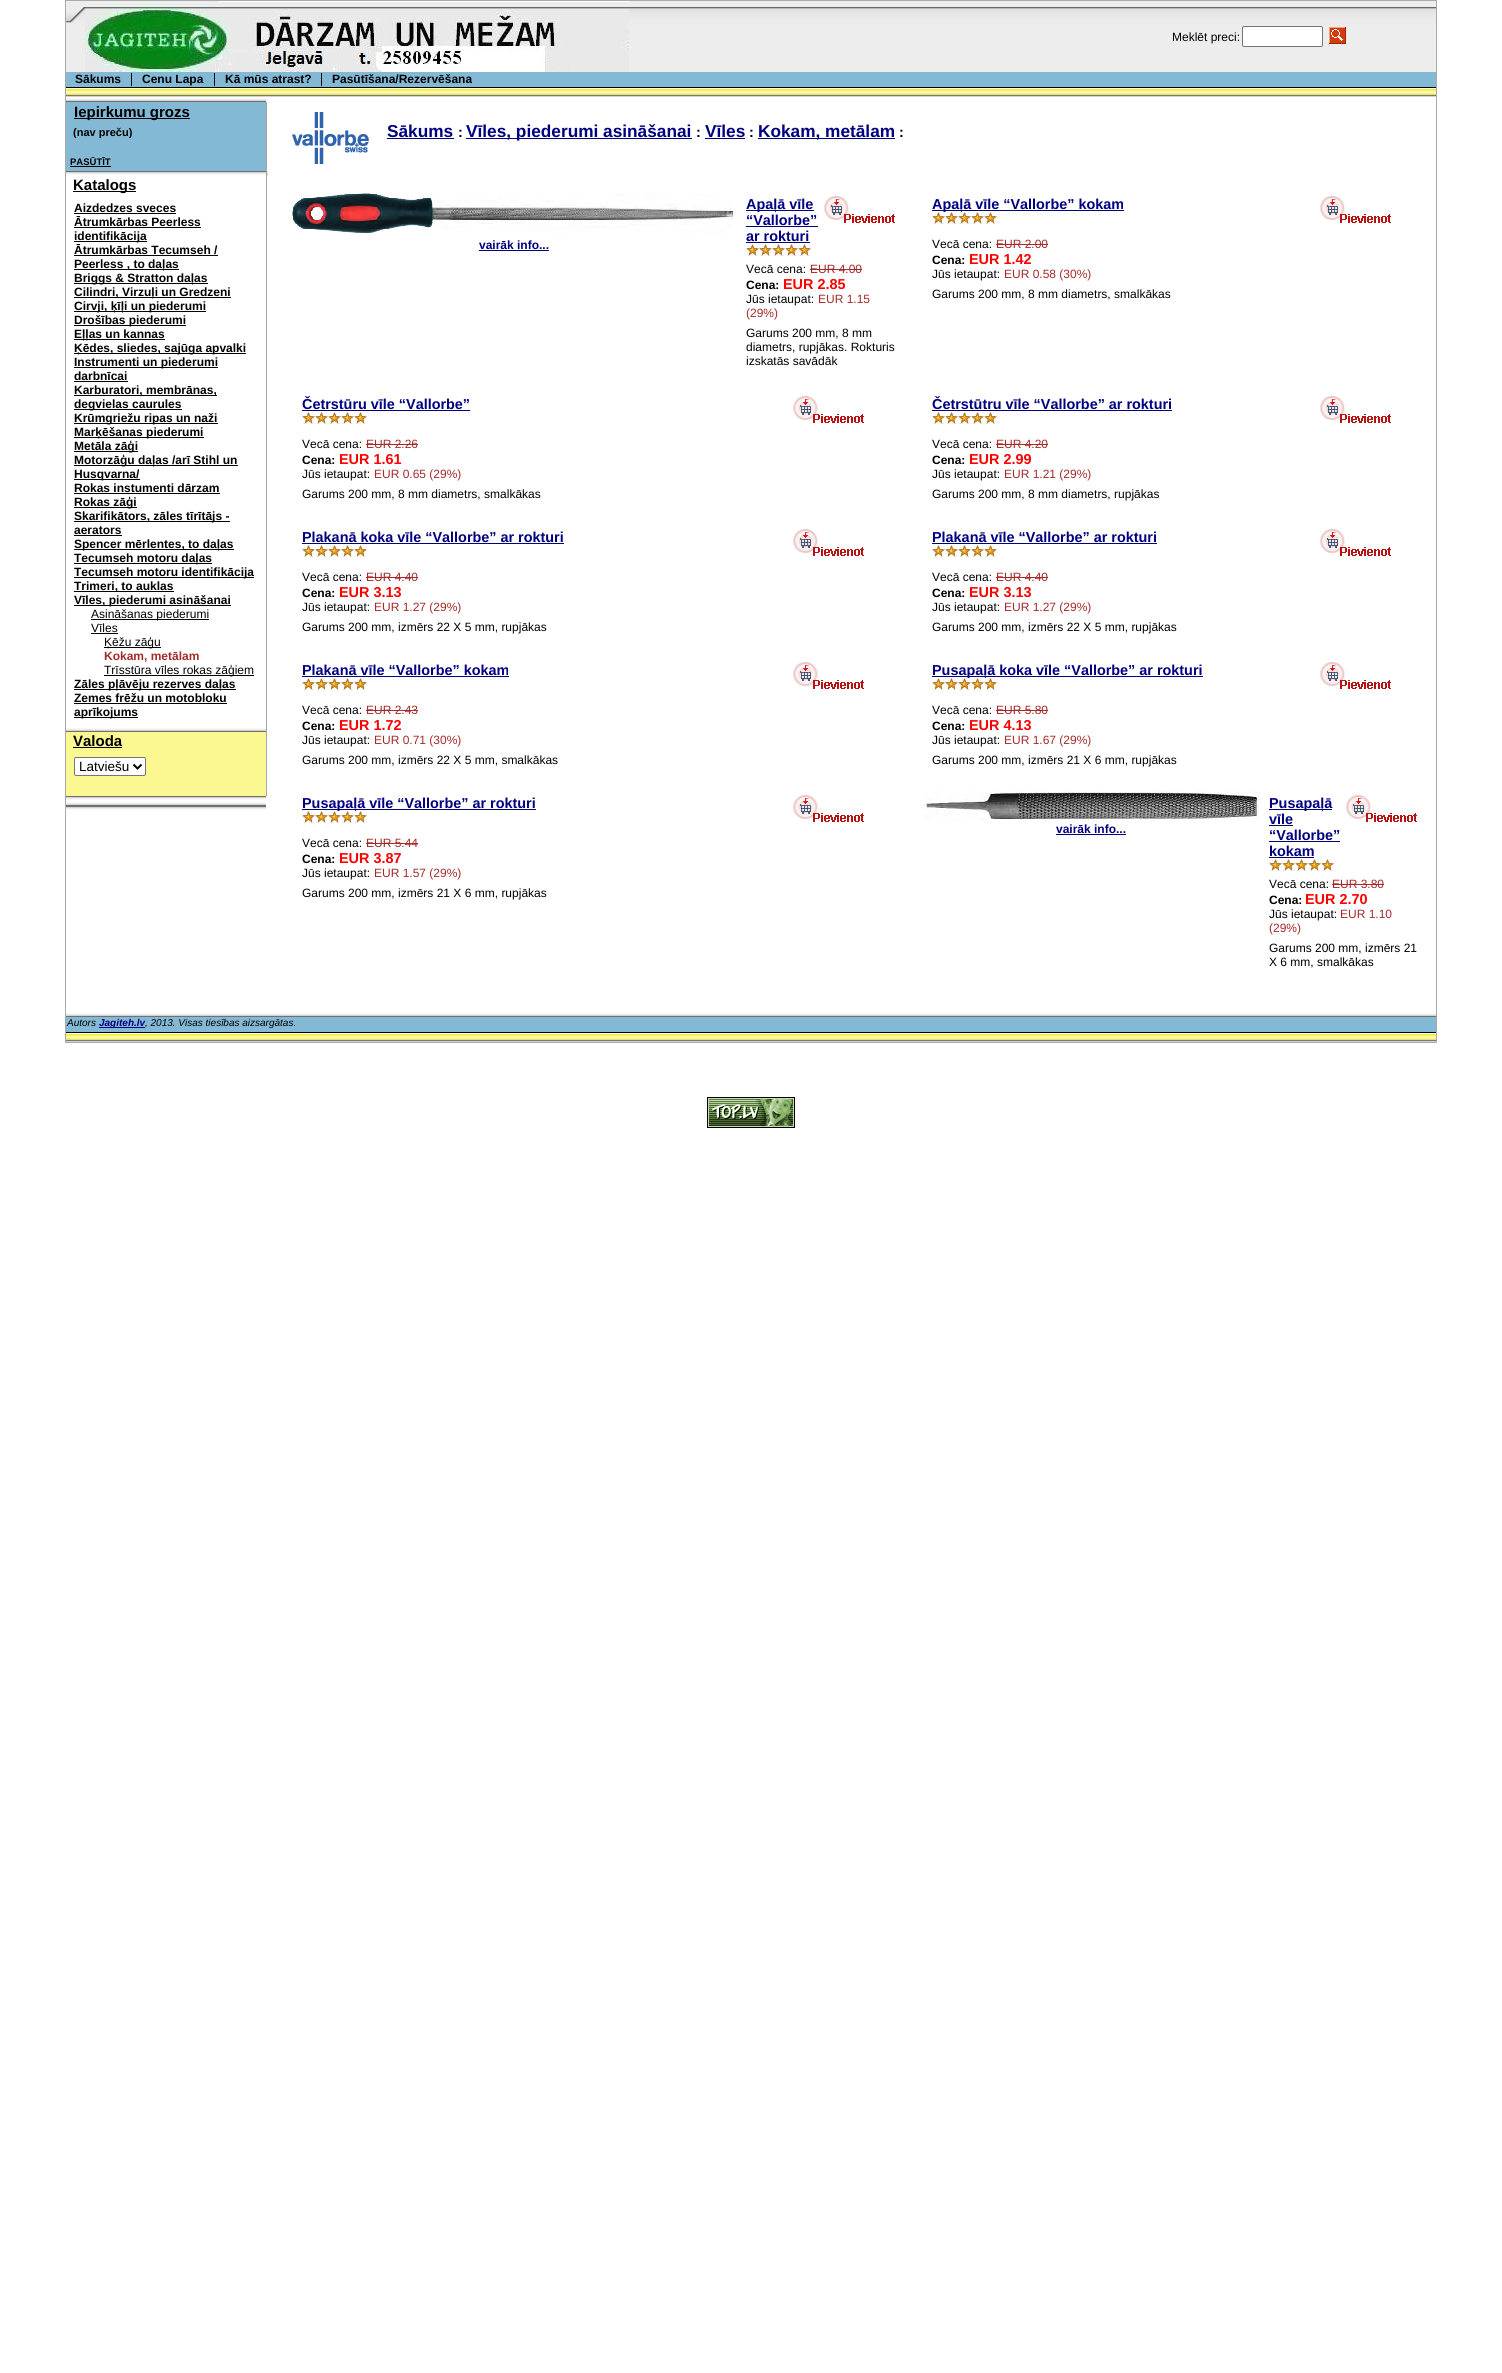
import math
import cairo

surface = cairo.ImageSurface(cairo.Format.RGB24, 1502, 2373)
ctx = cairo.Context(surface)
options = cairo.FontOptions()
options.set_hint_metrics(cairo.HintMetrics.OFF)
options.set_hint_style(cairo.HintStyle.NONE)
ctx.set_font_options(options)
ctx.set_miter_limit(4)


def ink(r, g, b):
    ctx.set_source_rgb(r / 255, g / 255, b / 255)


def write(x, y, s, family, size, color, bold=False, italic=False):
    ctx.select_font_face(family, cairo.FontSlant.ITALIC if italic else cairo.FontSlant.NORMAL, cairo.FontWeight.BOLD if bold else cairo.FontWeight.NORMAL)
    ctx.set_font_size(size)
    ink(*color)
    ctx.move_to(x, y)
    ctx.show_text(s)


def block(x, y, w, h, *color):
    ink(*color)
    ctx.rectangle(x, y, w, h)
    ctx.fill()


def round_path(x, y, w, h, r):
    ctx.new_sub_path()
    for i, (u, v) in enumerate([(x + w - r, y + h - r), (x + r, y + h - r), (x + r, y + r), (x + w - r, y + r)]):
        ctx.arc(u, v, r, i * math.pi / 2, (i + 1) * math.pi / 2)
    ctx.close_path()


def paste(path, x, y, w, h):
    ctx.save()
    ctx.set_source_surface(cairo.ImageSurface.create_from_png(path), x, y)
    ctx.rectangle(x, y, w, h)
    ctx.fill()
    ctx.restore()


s1 = dict(family="Liberation Sans", size=12, color=(0, 0, 0))
s2 = dict(family="Liberation Sans", size=12, color=(0, 0, 0), bold=True)
s3 = dict(family="Liberation Sans", size=15, color=(0, 0, 0), bold=True)
s4 = dict(family="Liberation Sans", size=11, color=(0, 0, 0), bold=True)
s5 = dict(family="Liberation Sans", size=9.5, color=(0, 0, 0), bold=True)
s6 = dict(family="Liberation Sans", size=12, color=(165, 42, 42), bold=True)
s7 = dict(family="Liberation Sans", size=13.5, color=(0, 0, 0))
s8 = dict(family="Liberation Sans", size=17.25, color=(0, 0, 128), bold=True)
s9 = dict(family="Liberation Sans", size=14.4, color=(0, 0, 0), bold=True)
s10 = dict(family="Liberation Sans", size=12, color=(0, 0, 128), bold=True)
s11 = dict(family="Liberation Sans", size=14.4, color=(0, 0, 128), bold=True)
s12 = dict(family="Liberation Sans", size=12, color=(165, 42, 42))
s13 = dict(family="Liberation Sans", size=14.4, color=(255, 0, 0), bold=True)
s14 = dict(family="Liberation Sans", size=10, color=(0, 0, 0), italic=True)
s15 = dict(family="Liberation Sans", size=10, color=(0, 0, 128), bold=True, italic=True)

ink(255, 255, 255)
ctx.paint()
block(65, 0, 1372, 1043, 170, 170, 170)
block(66, 97, 1370, 916, 255, 255, 255)
paste("pic1.png", 66, 1, 1370, 71)
paste("pic2.png", 66, 7, 19, 16)
paste("pic3.png", 85, 1, 544, 71)
write(1172, 41, "Meklēt preci:", **s1)
ink(255, 255, 255)
round_path(1242.5, 26.5, 80, 20, 1.5)
ctx.fill_preserve()
ink(118, 118, 118)
ctx.set_line_width(1)
ctx.stroke()
paste("pic4.png", 1329, 27, 17, 17)
paste("pic5.png", 66, 72, 1370, 25)
write(75, 83, "Sākums", **s2)
block(131, 73, 1, 13, 0, 0, 0)
write(142, 83, "Cenu Lapa", **s2)
block(214, 73, 1, 13, 0, 0, 0)
write(225, 83, "Kā mūs atrast?", **s2)
block(321, 73, 1, 13, 0, 0, 0)
write(332, 83, "Pasūtīšana/Rezervēšana", **s2)
paste("pic6.png", 66, 98, 200, 4)
block(66, 102, 200, 69, 132, 185, 213)
block(74, 118, 116, 1, 0, 0, 0)
write(74, 117, "Iepirkumu grozs", **s3)
ctx.save()
ctx.rectangle(73, 126, 153, 12)
ctx.clip()
write(73, 136, "(nav preču)", **s4)
ctx.restore()
write(70, 165, "PASŪTĪT", **s5)
block(70, 166, 41, 1, 0, 0, 0)
block(266, 102, 1, 69, 167, 167, 167)
paste("pic7.png", 66, 171, 200, 4)
paste("pic8.png", 266, 171, 2, 5)
block(73, 191, 63, 1, 0, 0, 0)
write(73, 190, "Katalogs", **s3)
block(266, 176, 1, 620, 167, 167, 167)
write(74, 212, "Aizdedzes sveces", **s2)
block(74, 213, 102, 1, 0, 0, 0)
write(74, 226, "Ātrumkārbas Peerless", **s2)
block(74, 227, 127, 1, 0, 0, 0)
block(74, 241, 73, 1, 0, 0, 0)
write(74, 240, "identifikācija", **s2)
write(74, 254, "Ātrumkārbas Tecumseh /", **s2)
block(74, 255, 144, 1, 0, 0, 0)
block(74, 269, 105, 1, 0, 0, 0)
write(74, 268, "Peerless , to daļas", **s2)
block(74, 283, 134, 1, 0, 0, 0)
write(74, 282, "Briggs & Stratton daļas", **s2)
block(74, 297, 157, 1, 0, 0, 0)
write(74, 296, "Cilindri, Virzuļi un Gredzeni", **s2)
block(74, 311, 132, 1, 0, 0, 0)
write(74, 310, "Cirvji, ķīļi un piederumi", **s2)
block(74, 325, 112, 1, 0, 0, 0)
write(74, 324, "Drošības piederumi", **s2)
block(74, 339, 91, 1, 0, 0, 0)
write(74, 338, "Eļļas un kannas", **s2)
block(74, 353, 172, 1, 0, 0, 0)
write(74, 352, "Ķēdes, sliedes, sajūga apvalki", **s2)
block(74, 367, 144, 1, 0, 0, 0)
write(74, 366, "Instrumenti un piederumi", **s2)
write(74, 380, "darbnīcai", **s2)
block(74, 381, 54, 1, 0, 0, 0)
block(74, 395, 143, 1, 0, 0, 0)
write(74, 394, "Karburatori, membrānas,", **s2)
block(74, 409, 108, 1, 0, 0, 0)
write(74, 408, "degvielas caurules", **s2)
block(74, 423, 144, 1, 0, 0, 0)
write(74, 422, "Krūmgriežu ripas un naži", **s2)
block(74, 437, 130, 1, 0, 0, 0)
write(74, 436, "Marķēšanas piederumi", **s2)
block(74, 451, 64, 1, 0, 0, 0)
write(74, 450, "Metāla zāģi", **s2)
block(74, 465, 164, 1, 0, 0, 0)
write(74, 464, "Motorzāģu daļas /arī Stihl un", **s2)
block(74, 479, 66, 1, 0, 0, 0)
write(74, 478, "Husqvarna/", **s2)
write(74, 492, "Rokas instumenti dārzam", **s2)
block(74, 493, 146, 1, 0, 0, 0)
block(74, 507, 63, 1, 0, 0, 0)
write(74, 506, "Rokas zāģi", **s2)
block(74, 521, 156, 1, 0, 0, 0)
write(74, 520, "Skarifikātors, zāles tīrītājs -", **s2)
write(74, 534, "aerators", **s2)
block(74, 535, 48, 1, 0, 0, 0)
block(74, 549, 160, 1, 0, 0, 0)
write(74, 548, "Spencer mērlentes, to daļas", **s2)
block(74, 563, 138, 1, 0, 0, 0)
write(74, 562, "Tecumseh motoru daļas", **s2)
block(74, 577, 180, 1, 0, 0, 0)
write(74, 576, "Tecumseh motoru identifikācija", **s2)
block(74, 591, 100, 1, 0, 0, 0)
write(74, 590, "Trimeri, to auklas", **s2)
block(74, 605, 157, 1, 0, 0, 0)
write(74, 604, "Vīles, piederumi asināšanai", **s2)
block(91, 619, 118, 1, 0, 0, 0)
write(91, 618, "Asināšanas piederumi", **s1)
write(91, 632, "Vīles", **s1)
block(91, 633, 27, 1, 0, 0, 0)
block(104, 647, 57, 1, 0, 0, 0)
write(104, 646, "Ķēžu zāģu", **s1)
write(104, 660, "Kokam, metālam", **s6)
block(104, 675, 150, 1, 0, 0, 0)
write(104, 674, "Trīsstūra vīles rokas zāģiem", **s1)
block(74, 689, 162, 1, 0, 0, 0)
write(74, 688, "Zāles pļāvēju rezerves daļas", **s2)
write(74, 702, "Zemes frēžu un motobloku", **s2)
block(74, 703, 153, 1, 0, 0, 0)
block(74, 717, 64, 1, 0, 0, 0)
write(74, 716, "aprīkojums", **s2)
paste("pic6.png", 66, 728, 200, 4)
block(66, 732, 200, 64, 252, 248, 145)
write(73, 746, "Valoda", **s3)
block(73, 747, 49, 1, 0, 0, 0)
ink(255, 255, 255)
round_path(74.5, 757.5, 71, 18, 1.5)
ctx.fill_preserve()
ink(118, 118, 118)
ctx.stroke()
ctx.new_path()
ctx.move_to(133.5, 764.5)
ctx.line_to(137.5, 768.5)
ctx.line_to(141.5, 764.5)
ink(0, 0, 0)
ctx.set_line_width(2)
ctx.stroke()
write(79, 771, "Latviešu", **s7)
paste("pic7.png", 66, 796, 200, 4)
paste("pic6.png", 66, 802, 200, 4)
paste("pic7.png", 66, 806, 200, 4)
paste("pic9.png", 292, 112, 77, 52)
write(387, 137, "Sākums", **s8)
block(387, 138, 67, 1, 0, 0, 128)
write(458, 137, ":", **s9)
block(466, 138, 226, 1, 0, 0, 128)
write(466, 137, "Vīles, piederumi asināšanai", **s8)
write(696, 137, ":", **s9)
write(705, 137, "Vīles", **s8)
block(705, 138, 40, 1, 0, 0, 128)
write(749, 137, ":", **s9)
block(758, 138, 137, 1, 0, 0, 128)
write(758, 137, "Kokam, metālam", **s8)
write(899, 137, ":", **s9)
paste("pic10.png", 292, 193, 442, 40)
write(479, 249, "vairāk info...", **s10)
block(479, 250, 70, 1, 0, 0, 128)
block(746, 210, 68, 1, 0, 0, 128)
write(746, 209, "Apaļā vīle", **s11)
write(746, 225, "“Vallorbe”", **s11)
block(746, 226, 72, 1, 0, 0, 128)
write(746, 241, "ar rokturi", **s11)
block(746, 242, 64, 1, 0, 0, 128)
paste("pic11.png", 746, 244, 13, 12)
paste("pic11.png", 759, 244, 13, 12)
paste("pic11.png", 772, 244, 13, 12)
paste("pic11.png", 785, 244, 13, 12)
paste("pic11.png", 798, 244, 13, 12)
paste("pic12.png", 824, 196, 71, 27)
write(746, 273, "Vecā cena:", **s1)
write(810, 273, "EUR 4.00", **s12)
block(810, 269, 52, 1, 165, 42, 42)
write(746, 289, "Cena:", **s2)
write(783, 289, "EUR 2.85", **s13)
write(746, 303, "Jūs ietaupat:", **s1)
write(818, 303, "EUR 1.15", **s12)
write(746, 317, "(29%)", **s12)
write(746, 337, "Garums 200 mm, 8 mm", **s1)
write(746, 351, "diametrs, rupjākas. Rokturis", **s1)
write(746, 365, "izskatās savādāk", **s1)
block(932, 210, 192, 1, 0, 0, 128)
write(932, 209, "Apaļā vīle “Vallorbe” kokam", **s11)
paste("pic11.png", 932, 212, 13, 12)
paste("pic11.png", 945, 212, 13, 12)
paste("pic11.png", 958, 212, 13, 12)
paste("pic11.png", 971, 212, 13, 12)
paste("pic11.png", 984, 212, 13, 12)
paste("pic12.png", 1320, 196, 71, 27)
write(932, 248, "Vecā cena:", **s1)
write(996, 248, "EUR 2.00", **s12)
block(996, 244, 52, 1, 165, 42, 42)
write(932, 264, "Cena:", **s2)
write(969, 264, "EUR 1.42", **s13)
write(932, 278, "Jūs ietaupat:", **s1)
write(1004, 278, "EUR 0.58 (30%)", **s12)
write(932, 298, "Garums 200 mm, 8 mm diametrs, smalkākas", **s1)
write(302, 409, "Četrstūru vīle “Vallorbe”", **s11)
block(302, 410, 168, 1, 0, 0, 128)
paste("pic11.png", 302, 412, 13, 12)
paste("pic11.png", 315, 412, 13, 12)
paste("pic11.png", 328, 412, 13, 12)
paste("pic11.png", 341, 412, 13, 12)
paste("pic11.png", 354, 412, 13, 12)
paste("pic12.png", 793, 396, 71, 27)
write(302, 448, "Vecā cena:", **s1)
write(366, 448, "EUR 2.26", **s12)
block(366, 444, 52, 1, 165, 42, 42)
write(302, 464, "Cena:", **s2)
write(339, 464, "EUR 1.61", **s13)
write(302, 478, "Jūs ietaupat:", **s1)
write(374, 478, "EUR 0.65 (29%)", **s12)
write(302, 498, "Garums 200 mm, 8 mm diametrs, smalkākas", **s1)
write(932, 409, "Četrstūtru vīle “Vallorbe” ar rokturi", **s11)
block(932, 410, 240, 1, 0, 0, 128)
paste("pic11.png", 932, 412, 13, 12)
paste("pic11.png", 945, 412, 13, 12)
paste("pic11.png", 958, 412, 13, 12)
paste("pic11.png", 971, 412, 13, 12)
paste("pic11.png", 984, 412, 13, 12)
paste("pic12.png", 1320, 396, 71, 27)
write(932, 448, "Vecā cena:", **s1)
write(996, 448, "EUR 4.20", **s12)
block(996, 444, 52, 1, 165, 42, 42)
write(932, 464, "Cena:", **s2)
write(969, 464, "EUR 2.99", **s13)
write(932, 478, "Jūs ietaupat:", **s1)
write(1004, 478, "EUR 1.21 (29%)", **s12)
write(932, 498, "Garums 200 mm, 8 mm diametrs, rupjākas", **s1)
write(302, 542, "Plakanā koka vīle “Vallorbe” ar rokturi", **s11)
block(302, 543, 262, 1, 0, 0, 128)
paste("pic11.png", 302, 545, 13, 12)
paste("pic11.png", 315, 545, 13, 12)
paste("pic11.png", 328, 545, 13, 12)
paste("pic11.png", 341, 545, 13, 12)
paste("pic11.png", 354, 545, 13, 12)
paste("pic12.png", 793, 529, 71, 27)
write(302, 581, "Vecā cena:", **s1)
write(366, 581, "EUR 4.40", **s12)
block(366, 577, 52, 1, 165, 42, 42)
write(302, 597, "Cena:", **s2)
write(339, 597, "EUR 3.13", **s13)
write(302, 611, "Jūs ietaupat:", **s1)
write(374, 611, "EUR 1.27 (29%)", **s12)
write(302, 631, "Garums 200 mm, izmērs 22 X 5 mm, rupjākas", **s1)
write(932, 542, "Plakanā vīle “Vallorbe” ar rokturi", **s11)
block(932, 543, 225, 1, 0, 0, 128)
paste("pic11.png", 932, 545, 13, 12)
paste("pic11.png", 945, 545, 13, 12)
paste("pic11.png", 958, 545, 13, 12)
paste("pic11.png", 971, 545, 13, 12)
paste("pic11.png", 984, 545, 13, 12)
paste("pic12.png", 1320, 529, 71, 27)
write(932, 581, "Vecā cena:", **s1)
write(996, 581, "EUR 4.40", **s12)
block(996, 577, 52, 1, 165, 42, 42)
write(932, 597, "Cena:", **s2)
write(969, 597, "EUR 3.13", **s13)
write(932, 611, "Jūs ietaupat:", **s1)
write(1004, 611, "EUR 1.27 (29%)", **s12)
write(932, 631, "Garums 200 mm, izmērs 22 X 5 mm, rupjākas", **s1)
write(302, 675, "Plakanā vīle “Vallorbe” kokam", **s11)
block(302, 676, 207, 1, 0, 0, 128)
paste("pic11.png", 302, 678, 13, 12)
paste("pic11.png", 315, 678, 13, 12)
paste("pic11.png", 328, 678, 13, 12)
paste("pic11.png", 341, 678, 13, 12)
paste("pic11.png", 354, 678, 13, 12)
paste("pic12.png", 793, 662, 71, 27)
write(302, 714, "Vecā cena:", **s1)
write(366, 714, "EUR 2.43", **s12)
block(366, 710, 52, 1, 165, 42, 42)
write(302, 730, "Cena:", **s2)
write(339, 730, "EUR 1.72", **s13)
write(302, 744, "Jūs ietaupat:", **s1)
write(374, 744, "EUR 0.71 (30%)", **s12)
write(302, 764, "Garums 200 mm, izmērs 22 X 5 mm, smalkākas", **s1)
block(932, 676, 271, 1, 0, 0, 128)
write(932, 675, "Pusapaļā koka vīle “Vallorbe” ar rokturi", **s11)
paste("pic11.png", 932, 678, 13, 12)
paste("pic11.png", 945, 678, 13, 12)
paste("pic11.png", 958, 678, 13, 12)
paste("pic11.png", 971, 678, 13, 12)
paste("pic11.png", 984, 678, 13, 12)
paste("pic12.png", 1320, 662, 71, 27)
write(932, 714, "Vecā cena:", **s1)
write(996, 714, "EUR 5.80", **s12)
block(996, 710, 52, 1, 165, 42, 42)
write(932, 730, "Cena:", **s2)
write(969, 730, "EUR 4.13", **s13)
write(932, 744, "Jūs ietaupat:", **s1)
write(1004, 744, "EUR 1.67 (29%)", **s12)
write(932, 764, "Garums 200 mm, izmērs 21 X 6 mm, rupjākas", **s1)
block(302, 809, 234, 1, 0, 0, 128)
write(302, 808, "Pusapaļā vīle “Vallorbe” ar rokturi", **s11)
paste("pic11.png", 302, 811, 13, 12)
paste("pic11.png", 315, 811, 13, 12)
paste("pic11.png", 328, 811, 13, 12)
paste("pic11.png", 341, 811, 13, 12)
paste("pic11.png", 354, 811, 13, 12)
paste("pic12.png", 793, 795, 71, 27)
write(302, 847, "Vecā cena:", **s1)
write(366, 847, "EUR 5.44", **s12)
block(366, 843, 52, 1, 165, 42, 42)
write(302, 863, "Cena:", **s2)
write(339, 863, "EUR 3.87", **s13)
write(302, 877, "Jūs ietaupat:", **s1)
write(374, 877, "EUR 1.57 (29%)", **s12)
write(302, 897, "Garums 200 mm, izmērs 21 X 6 mm, rupjākas", **s1)
paste("pic13.png", 923, 791, 337, 29)
write(1056, 833, "vairāk info...", **s10)
block(1056, 834, 70, 1, 0, 0, 128)
block(1269, 809, 63, 1, 0, 0, 128)
write(1269, 808, "Pusapaļā", **s11)
write(1269, 824, "vīle", **s11)
block(1269, 825, 24, 1, 0, 0, 128)
write(1269, 840, "“Vallorbe”", **s11)
block(1269, 841, 71, 1, 0, 0, 128)
write(1269, 856, "kokam", **s11)
block(1269, 857, 45, 1, 0, 0, 128)
paste("pic11.png", 1269, 859, 13, 12)
paste("pic11.png", 1282, 859, 13, 12)
paste("pic11.png", 1295, 859, 13, 12)
paste("pic11.png", 1308, 859, 13, 12)
paste("pic11.png", 1321, 859, 13, 12)
paste("pic12.png", 1346, 795, 71, 27)
write(1269, 888, "Vecā cena:", **s1)
write(1332, 888, "EUR 3.80", **s12)
block(1332, 884, 52, 1, 165, 42, 42)
write(1269, 904, "Cena:", **s2)
write(1305, 904, "EUR 2.70", **s13)
write(1269, 918, "Jūs ietaupat:", **s1)
write(1340, 918, "EUR 1.10", **s12)
write(1269, 932, "(29%)", **s12)
write(1269, 952, "Garums 200 mm, izmērs 21", **s1)
write(1269, 966, "X 6 mm, smalkākas", **s1)
paste("pic14.png", 66, 1013, 1370, 4)
paste("pic5.png", 66, 1017, 1370, 25)
write(67, 1026, "Autors", **s14)
block(99, 1027, 46, 1, 0, 0, 128)
write(99, 1026, "Jagiteh.lv", **s15)
write(145, 1026, ", 2013. Visas tiesības aizsargātas.", **s14)
paste("pic15.png", 707, 1097, 88, 31)
surface.write_to_png("screenshot.png")
